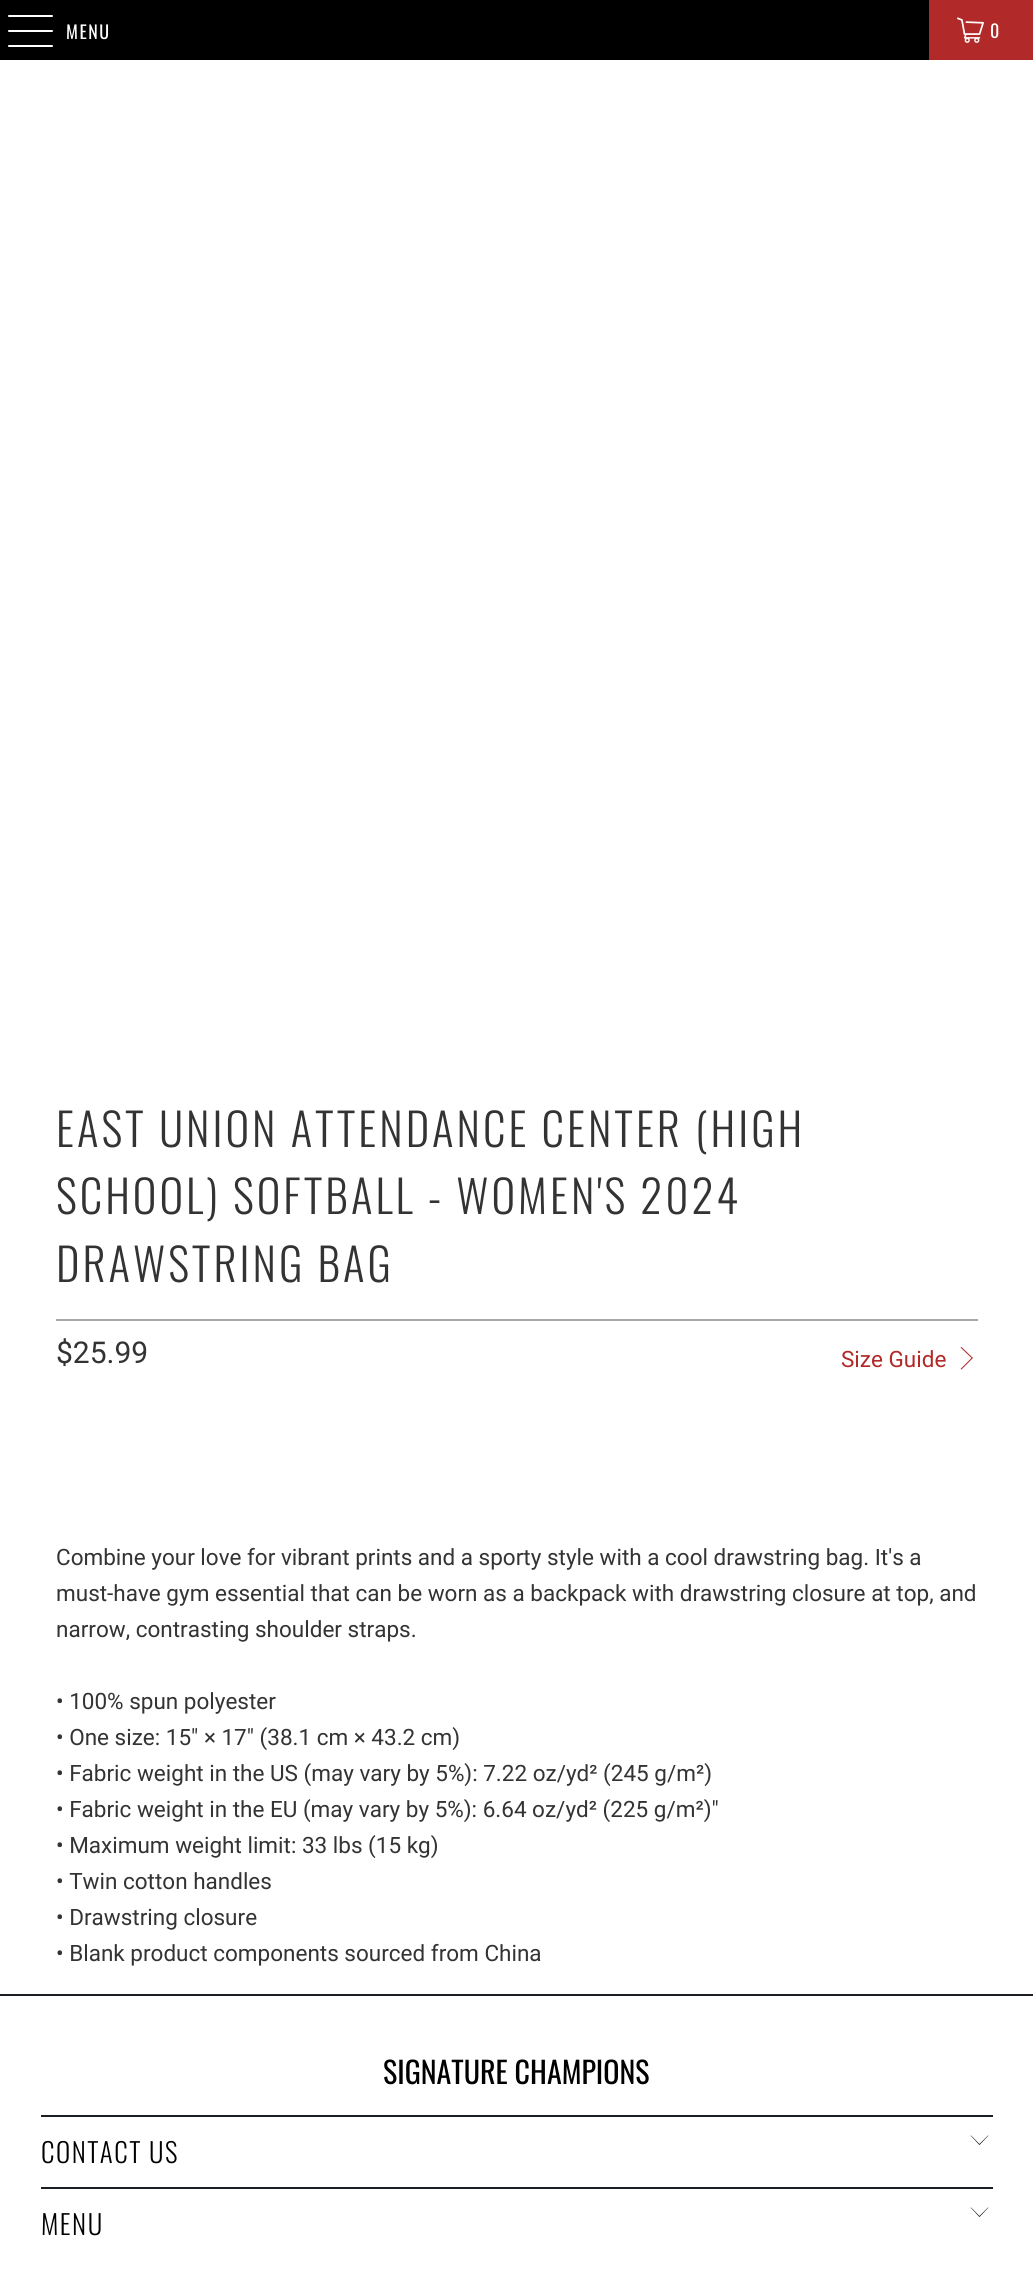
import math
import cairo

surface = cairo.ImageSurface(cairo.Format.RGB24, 1033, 2291)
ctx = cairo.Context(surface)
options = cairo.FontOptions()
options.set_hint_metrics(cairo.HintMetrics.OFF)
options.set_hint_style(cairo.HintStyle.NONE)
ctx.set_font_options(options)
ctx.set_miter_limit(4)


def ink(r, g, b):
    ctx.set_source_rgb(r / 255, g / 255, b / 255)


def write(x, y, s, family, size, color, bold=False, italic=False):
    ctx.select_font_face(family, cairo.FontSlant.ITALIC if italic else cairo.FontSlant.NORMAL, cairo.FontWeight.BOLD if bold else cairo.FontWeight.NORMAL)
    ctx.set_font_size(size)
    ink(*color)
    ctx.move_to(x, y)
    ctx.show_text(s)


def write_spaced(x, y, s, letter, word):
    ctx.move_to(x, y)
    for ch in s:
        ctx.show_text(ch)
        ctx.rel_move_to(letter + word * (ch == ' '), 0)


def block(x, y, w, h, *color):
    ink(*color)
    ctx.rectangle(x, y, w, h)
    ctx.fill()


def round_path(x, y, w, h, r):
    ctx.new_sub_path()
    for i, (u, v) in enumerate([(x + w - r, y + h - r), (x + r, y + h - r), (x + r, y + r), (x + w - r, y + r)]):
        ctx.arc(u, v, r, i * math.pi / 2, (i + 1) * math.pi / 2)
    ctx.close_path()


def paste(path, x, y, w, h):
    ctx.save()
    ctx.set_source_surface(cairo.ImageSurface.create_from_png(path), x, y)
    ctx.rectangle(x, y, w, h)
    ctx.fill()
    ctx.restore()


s1 = dict(family="Roboto", size=30, color=(51, 51, 51))
s2 = dict(family="Roboto", size=22.5, color=(177, 41, 40))
s3 = dict(family="Roboto", size=22.5, color=(51, 51, 51))
s4 = dict(family="Oswald", size=30, color=(0, 0, 0))

ink(255, 255, 255)
ctx.paint()
block(0, 0, 929, 60, 0, 0, 0)
ink(255, 255, 255)
round_path(8, 15, 45, 2, 1)
ctx.fill()
round_path(8, 30, 45, 2, 1)
ctx.fill()
round_path(8, 45, 45, 2, 1)
ctx.fill()
ctx.select_font_face("Oswald")
ctx.set_font_size(18)
write_spaced(66, 39, "MENU", 1.5, 0)
block(929, 0, 104, 60, 177, 41, 40)
paste("pic1.png", 957, 17, 27, 26)
ink(255, 255, 255)
write_spaced(990, 38, "0", 1.5, 0)
ctx.select_font_face("Oswald Light")
ctx.set_font_size(45)
ink(51, 51, 51)
write_spaced(56, 1147, "EAST UNION ATTENDANCE CENTER (HIGH", 3, 0)
write_spaced(56, 1214, "SCHOOL) SOFTBALL - WOMEN'S 2024", 3, 0)
write_spaced(56, 1282, "DRAWSTRING BAG", 3, 0)
block(56, 1319, 922, 2, 170, 170, 170)
write(56, 1363, "$25.99", **s1)
write(841, 1367, "Size Guide", **s2)
ctx.new_path()
ctx.move_to(961.5, 1369.5)
ctx.line_to(960.5, 1369)
ctx.line_to(971.5, 1358)
ctx.line_to(960.5, 1347.5)
ctx.line_to(961.5, 1347)
ctx.line_to(973, 1358)
ctx.close_path()
ctx.fill()
write(56, 1565, "Combine your love for vibrant prints and a sporty style with a cool drawstring bag. It's a", **s3)
write(56, 1601, "must-have gym essential that can be worn as a backpack with drawstring closure at top, and", **s3)
write(56, 1637, "narrow, contrasting shoulder straps.", **s3)
write(56, 1709, "• 100% spun polyester", **s3)
write(56, 1745, "• One size: 15″ × 17″ (38.1 cm × 43.2 cm)", **s3)
write(56, 1781, "• Fabric weight in the US (may vary by 5%): 7.22 oz/yd² (245 g/m²)", **s3)
write(56, 1817, "• Fabric weight in the EU (may vary by 5%): 6.64 oz/yd² (225 g/m²)\"", **s3)
write(56, 1853, "• Maximum weight limit: 33 lbs (15 kg)", **s3)
write(56, 1889, "• Twin cotton handles", **s3)
write(56, 1925, "• Drawstring closure", **s3)
write(56, 1961, "• Blank product components sourced from China", **s3)
block(0, 1994, 1033, 2, 27, 31, 35)
write(383, 2084, "SIGNATURE CHAMPIONS", **s4)
block(41, 2115, 952, 2, 27, 31, 35)
ctx.select_font_face("Oswald Light")
ctx.set_font_size(27)
ink(0, 0, 0)
write_spaced(41, 2163, "CONTACT US", 1.5, 0)
ctx.new_path()
ctx.move_to(979.5, 2145)
ctx.line_to(970.5, 2135.5)
ctx.line_to(971, 2135.5)
ctx.line_to(979.5, 2144)
ctx.line_to(988, 2135.5)
ctx.line_to(988.5, 2135.5)
ctx.close_path()
ctx.fill()
block(41, 2187, 952, 2, 27, 31, 35)
ink(0, 0, 0)
ctx.new_path()
ctx.move_to(979.5, 2217)
ctx.line_to(970.5, 2207.5)
ctx.line_to(971, 2207.5)
ctx.line_to(979.5, 2216)
ctx.line_to(988, 2207.5)
ctx.line_to(988.5, 2207.5)
ctx.close_path()
ctx.fill()
write_spaced(41, 2235, "MENU", 1.5, 0)
surface.write_to_png("screenshot.png")
